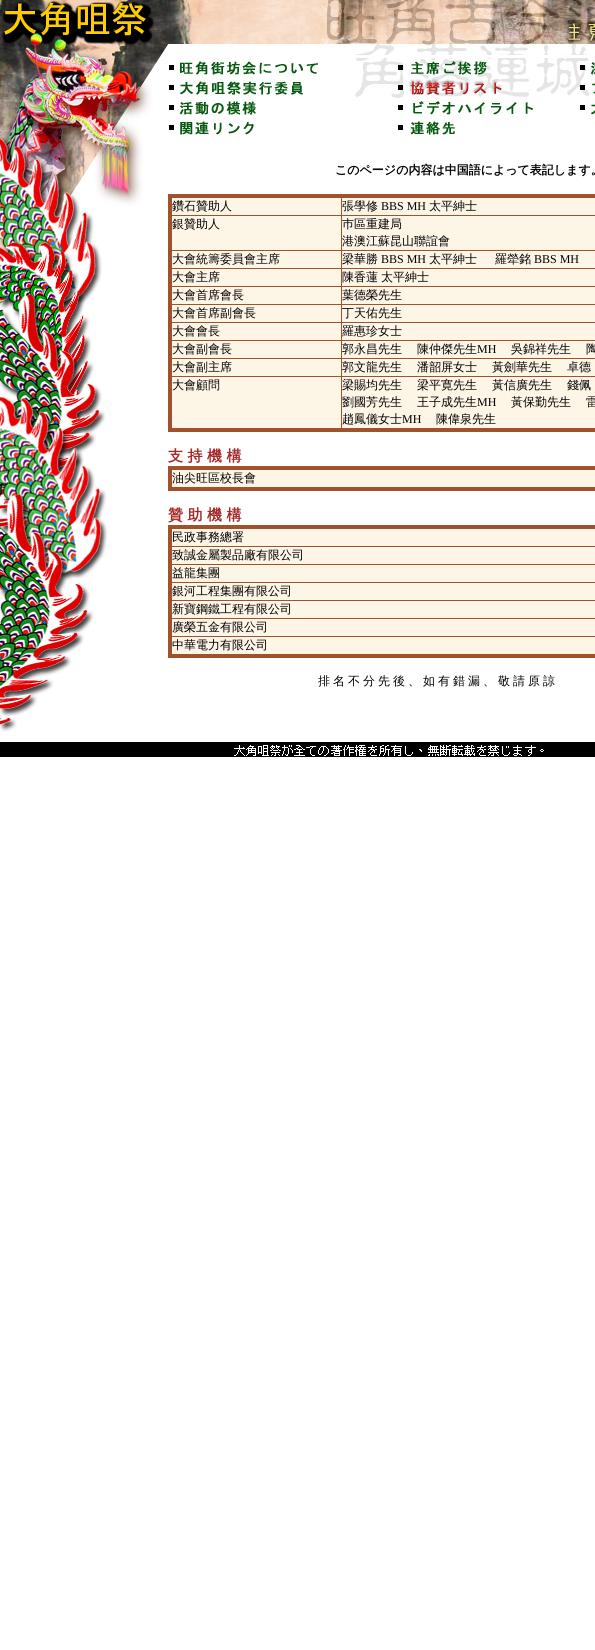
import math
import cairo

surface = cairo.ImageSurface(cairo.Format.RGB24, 595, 1650)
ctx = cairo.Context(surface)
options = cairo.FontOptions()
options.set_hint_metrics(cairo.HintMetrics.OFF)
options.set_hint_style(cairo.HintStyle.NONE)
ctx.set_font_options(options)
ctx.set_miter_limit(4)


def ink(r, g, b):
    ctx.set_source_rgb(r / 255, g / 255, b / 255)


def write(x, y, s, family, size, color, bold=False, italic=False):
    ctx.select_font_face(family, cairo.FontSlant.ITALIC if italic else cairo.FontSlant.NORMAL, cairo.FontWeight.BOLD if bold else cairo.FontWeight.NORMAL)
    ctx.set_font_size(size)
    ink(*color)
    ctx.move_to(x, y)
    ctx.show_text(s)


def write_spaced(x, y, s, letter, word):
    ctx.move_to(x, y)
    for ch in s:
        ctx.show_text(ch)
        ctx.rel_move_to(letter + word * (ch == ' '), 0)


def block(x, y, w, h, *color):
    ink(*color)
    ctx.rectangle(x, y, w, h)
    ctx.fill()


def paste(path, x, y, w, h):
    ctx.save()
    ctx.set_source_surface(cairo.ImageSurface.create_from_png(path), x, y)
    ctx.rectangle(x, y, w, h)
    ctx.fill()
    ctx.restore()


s1 = dict(family="WenQuanYi Zen Hei", size=12, color=(0, 0, 0), bold=True)
s2 = dict(family="WenQuanYi Zen Hei Medium", size=12, color=(0, 0, 0))
s3 = dict(family="Liberation Serif", size=12, color=(0, 0, 0))
s4 = dict(family="WenQuanYi Zen Hei", size=15, color=(165, 42, 42), bold=True)

ink(255, 255, 255)
ctx.paint()
paste("pic1.png", 0, 0, 168, 732)
paste("pic2.png", 168, 0, 395, 55)
paste("pic3.png", 563, 0, 32, 55)
paste("pic4.png", 169, 58, 228, 20)
paste("pic5.png", 397, 58, 182, 20)
paste("pic6.png", 579, 58, 16, 20)
paste("pic7.png", 169, 78, 228, 20)
paste("pic8.png", 397, 78, 182, 20)
paste("pic9.png", 579, 78, 16, 19)
paste("pic10.png", 169, 99, 87, 16)
paste("pic11.png", 398, 98, 135, 17)
paste("pic12.png", 580, 98, 15, 17)
paste("pic13.png", 169, 118, 85, 17)
paste("pic14.png", 398, 120, 57, 15)
write(335, 174, "このページの内容は中国語によって表記します。", **s1)
block(168, 194, 427, 238, 160, 82, 45)
block(172, 198, 169, 17, 253, 245, 230)
write(172, 210, "鑽石贊助人", **s2)
block(342, 198, 253, 17, 253, 245, 230)
write(342, 210, "張學修", **s2)
write(381, 210, "BBS MH", **s3)
write(429, 210, "太平紳士", **s2)
block(172, 216, 169, 34, 253, 245, 230)
write(172, 228, "銀贊助人", **s2)
block(342, 216, 253, 34, 253, 245, 230)
write(342, 228, "巿區重建局", **s2)
write(342, 245, "港澳江蘇昆山聯誼會", **s2)
block(172, 251, 169, 17, 253, 245, 230)
write(172, 263, "大會統籌委員會主席", **s2)
block(342, 251, 253, 17, 253, 245, 230)
write(342, 263, "梁華勝", **s2)
write(381, 263, "BBS MH", **s3)
write(429, 263, "太平紳士", **s2)
write(495, 263, "羅犖銘", **s2)
write(534, 263, "BBS MH", **s3)
block(172, 269, 169, 17, 253, 245, 230)
write(172, 281, "大會主席", **s2)
block(342, 269, 253, 17, 253, 245, 230)
ink(0, 0, 0)
write_spaced(342, 281, "陳香蓮 太平紳士", 0, -0.6)
block(172, 287, 169, 17, 253, 245, 230)
write(172, 299, "大會首席會長", **s2)
block(342, 287, 253, 17, 253, 245, 230)
write(342, 299, "葉德榮先生", **s2)
block(172, 305, 169, 17, 253, 245, 230)
write(172, 317, "大會首席副會長", **s2)
block(342, 305, 253, 17, 253, 245, 230)
write(342, 317, "丁天佑先生", **s2)
block(172, 323, 169, 17, 253, 245, 230)
write(172, 335, "大會會長", **s2)
block(342, 323, 253, 17, 253, 245, 230)
write(342, 335, "羅惠珍女士", **s2)
block(172, 341, 169, 17, 253, 245, 230)
write(172, 353, "大會副會長", **s2)
block(342, 341, 253, 17, 253, 245, 230)
write(342, 353, "郭永昌先生", **s2)
write(417, 353, "陳仲傑先生", **s2)
write(477, 353, "MH", **s3)
write(511, 353, "吳錦祥先生", **s2)
write(586, 353, "陶", **s2)
block(172, 359, 169, 17, 253, 245, 230)
write(172, 371, "大會副主席", **s2)
block(342, 359, 253, 17, 253, 245, 230)
write(342, 371, "郭文龍先生", **s2)
write(417, 371, "潘韶屏女士", **s2)
write(492, 371, "黃劍華先生", **s2)
write(567, 371, "卓德", **s2)
block(172, 377, 169, 51, 253, 245, 230)
write(172, 389, "大會顧問", **s2)
block(342, 377, 253, 51, 253, 245, 230)
write(342, 389, "梁賜均先生", **s2)
write(417, 389, "梁平寛先生", **s2)
write(492, 389, "黃信廣先生", **s2)
write(567, 389, "錢佩", **s2)
write(342, 406, "劉國芳先生", **s2)
write(417, 406, "王子成先生", **s2)
write(477, 406, "MH", **s3)
write(511, 406, "黃保勤先生", **s2)
write(586, 406, "雷", **s2)
write(342, 423, "趙鳳儀女士", **s2)
write(402, 423, "MH", **s3)
write(436, 423, "陳偉泉先生", **s2)
write(168, 461, "支 持 機 構", **s4)
block(168, 466, 427, 25, 160, 82, 45)
block(172, 470, 423, 17, 253, 245, 230)
write(172, 482, "油尖旺區校長會", **s2)
write(168, 520, "贊 助 機 構", **s4)
block(168, 525, 427, 133, 160, 82, 45)
block(172, 529, 423, 17, 253, 245, 230)
write(172, 541, "民政事務總署", **s2)
block(172, 547, 423, 17, 253, 245, 230)
write(172, 559, "致誠金屬製品廠有限公司", **s2)
block(172, 565, 423, 17, 253, 245, 230)
write(172, 577, "益龍集團", **s2)
block(172, 583, 423, 17, 253, 245, 230)
write(172, 595, "銀河工程集團有限公司", **s2)
block(172, 601, 423, 17, 253, 245, 230)
write(172, 613, "新寶鋼鐵工程有限公司", **s2)
block(172, 619, 423, 17, 253, 245, 230)
write(172, 631, "廣榮五金有限公司", **s2)
block(172, 637, 423, 17, 253, 245, 230)
write(172, 649, "中華電力有限公司", **s2)
write_spaced(318, 685, "排 名 不 分 先 後 、 如 有 錯 漏 、 敬 請 原 諒", 0, -0.6)
paste("pic15.png", 0, 742, 595, 15)
surface.write_to_png("screenshot.png")
